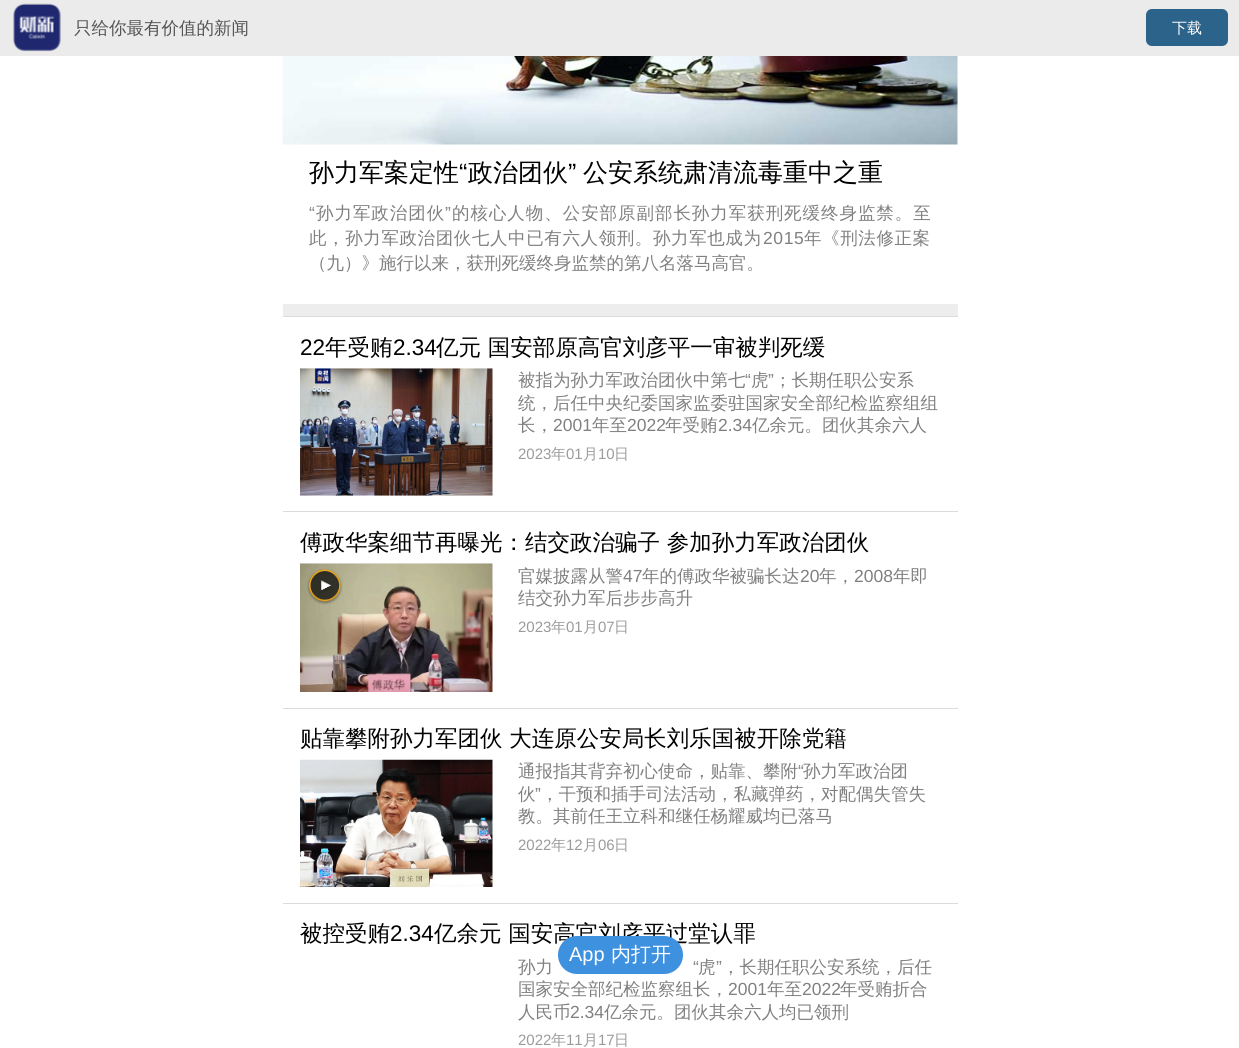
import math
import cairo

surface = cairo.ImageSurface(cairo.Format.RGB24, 1239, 1048)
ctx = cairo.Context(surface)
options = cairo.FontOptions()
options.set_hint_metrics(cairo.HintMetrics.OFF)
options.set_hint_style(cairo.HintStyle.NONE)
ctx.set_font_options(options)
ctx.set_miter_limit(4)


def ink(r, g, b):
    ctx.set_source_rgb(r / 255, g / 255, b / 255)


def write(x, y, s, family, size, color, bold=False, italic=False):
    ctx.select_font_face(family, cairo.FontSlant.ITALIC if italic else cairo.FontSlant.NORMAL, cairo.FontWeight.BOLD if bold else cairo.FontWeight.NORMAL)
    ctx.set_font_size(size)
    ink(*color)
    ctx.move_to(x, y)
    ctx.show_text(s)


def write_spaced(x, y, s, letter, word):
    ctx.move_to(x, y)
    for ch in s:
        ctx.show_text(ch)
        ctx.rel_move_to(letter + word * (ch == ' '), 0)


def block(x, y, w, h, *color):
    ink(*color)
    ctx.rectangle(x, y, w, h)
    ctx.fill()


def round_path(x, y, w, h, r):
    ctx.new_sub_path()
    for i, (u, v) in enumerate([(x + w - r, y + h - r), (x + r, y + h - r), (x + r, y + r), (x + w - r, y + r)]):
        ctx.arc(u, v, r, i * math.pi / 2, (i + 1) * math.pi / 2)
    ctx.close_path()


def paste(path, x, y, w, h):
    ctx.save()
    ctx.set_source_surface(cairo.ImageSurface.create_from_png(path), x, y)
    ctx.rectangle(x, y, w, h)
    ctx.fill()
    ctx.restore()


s1 = dict(family="WenQuanYi Zen Hei Medium", size=17.5, color=(85, 85, 85))
s2 = dict(family="WenQuanYi Zen Hei Medium", size=15, color=(255, 255, 255))
s3 = dict(family="WenQuanYi Zen Hei Medium", size=25, color=(0, 0, 0))
s4 = dict(family="Liberation Sans", size=25, color=(0, 0, 0))
s5 = dict(family="WenQuanYi Zen Hei Medium", size=17.5, color=(128, 128, 128))
s6 = dict(family="Liberation Sans", size=22.5, color=(0, 0, 0))
s7 = dict(family="WenQuanYi Zen Hei Medium", size=22.5, color=(0, 0, 0))
s8 = dict(family="Liberation Sans", size=17.5, color=(128, 128, 128))
s9 = dict(family="Liberation Sans", size=15, color=(155, 155, 155))
s10 = dict(family="WenQuanYi Zen Hei Medium", size=15, color=(155, 155, 155))
s11 = dict(family="Liberation Sans", size=20, color=(255, 255, 255))
s12 = dict(family="WenQuanYi Zen Hei Medium", size=20, color=(255, 255, 255))

ink(255, 255, 255)
ctx.paint()
block(0, 0, 1239, 56, 235, 235, 235)
paste("pic1.png", 13, 3, 48, 49)
write(74, 34, "只给你最有价值的新闻", **s1)
ink(44, 99, 138)
round_path(1146, 9, 82, 37, 6)
ctx.fill()
write(1172, 33, "下载", **s2)
paste("pic2.png", 282, 56, 676, 89)
write(309, 181, "孙力军案定性", **s3)
write(459, 181, "“", **s4)
write(468, 181, "政治团伙", **s3)
write(568, 181, "”", **s4)
write(583, 181, "公安系统肃清流毒重中之重", **s3)
ctx.select_font_face("Liberation Sans")
ctx.set_font_size(17.5)
ink(128, 128, 128)
write_spaced(309, 219, "“", 0.95, 0)
ctx.select_font_face("WenQuanYi Zen Hei Medium")
write_spaced(316, 219, "孙力军政治团伙", 0.95, 0)
ctx.select_font_face("Liberation Sans")
write_spaced(445, 219, "”", 0.95, 0)
ctx.select_font_face("WenQuanYi Zen Hei Medium")
write_spaced(452, 219, "的核心人物、公安部原副部长孙力军获刑死缓终身监禁。至", 0.95, 0)
write_spaced(309, 244, "此，孙力军政治团伙七人中已有六人领刑。孙力军也成为", 0.6, 0)
ctx.select_font_face("Liberation Sans")
write_spaced(763, 244, "2015", 0.6, 0)
ctx.select_font_face("WenQuanYi Zen Hei Medium")
write_spaced(804, 244, "年《刑法修正案", 0.6, 0)
write(309, 269, "（九）》施行以来，获刑死缓终身监禁的第八名落马高官。", **s5)
block(283, 304, 675, 12, 237, 237, 237)
block(283, 316, 675, 1, 220, 220, 220)
write(300, 355, "22", **s6)
write(325, 355, "年受贿", **s7)
write(393, 355, "2.34", **s6)
write(436, 355, "亿元 国安部原高官刘彦平一审被判死缓", **s7)
paste("pic3.png", 300, 368, 193, 128)
write(518, 386, "被指为孙力军政治团伙中第七", **s5)
write(745, 386, "“", **s8)
write(751, 386, "虎", **s5)
write(768, 386, "”", **s8)
write(774, 386, "；长期任职公安系", **s5)
write(518, 409, "统，后任中央纪委国家监委驻国家安全部纪检监察组组", **s5)
write(518, 431, "长，", **s5)
write(553, 431, "2001", **s8)
write(592, 431, "年至", **s5)
write(627, 431, "2022", **s8)
write(665, 431, "年受贿", **s5)
write(718, 431, "2.34", **s8)
write(752, 431, "亿余元。团伙其余六人", **s5)
write(518, 459, "2023", **s9)
write(551, 459, "年", **s10)
write(566, 459, "01", **s9)
write(583, 459, "月", **s10)
write(598, 459, "10", **s9)
write(614, 459, "日", **s10)
block(283, 511, 675, 1, 220, 220, 220)
write(300, 550, "傅政华案细节再曝光：结交政治骗子 参加孙力军政治团伙", **s7)
paste("pic4.png", 300, 563, 193, 129)
paste("pic5.png", 307, 569, 36, 36)
write(518, 582, "官媒披露从警", **s5)
write(623, 582, "47", **s8)
write(642, 582, "年的傅政华被骗长达", **s5)
write(800, 582, "20", **s8)
write(819, 582, "年，", **s5)
write(854, 582, "2008", **s8)
write(893, 582, "年即", **s5)
write(518, 604, "结交孙力军后步步高升", **s5)
write(518, 632, "2023", **s9)
write(551, 632, "年", **s10)
write(566, 632, "01", **s9)
write(583, 632, "月", **s10)
write(598, 632, "07", **s9)
write(614, 632, "日", **s10)
block(283, 708, 675, 1, 220, 220, 220)
write(300, 746, "贴靠攀附孙力军团伙 大连原公安局长刘乐国被开除党籍", **s7)
paste("pic6.png", 300, 759, 193, 128)
write(518, 777, "通报指其背弃初心使命，贴靠、攀附", **s5)
write(798, 777, "“", **s8)
write(803, 777, "孙力军政治团", **s5)
write(518, 800, "伙", **s5)
write(535, 800, "”", **s8)
write(541, 800, "，干预和插手司法活动，私藏弹药，对配偶失管失", **s5)
write(518, 822, "教。其前任王立科和继任杨耀威均已落马", **s5)
write(518, 850, "2022", **s9)
write(551, 850, "年", **s10)
write(566, 850, "12", **s9)
write(583, 850, "月", **s10)
write(598, 850, "06", **s9)
write(614, 850, "日", **s10)
block(283, 903, 675, 1, 220, 220, 220)
write(300, 941, "被控受贿", **s7)
write(390, 941, "2.34", **s6)
write(434, 941, "亿余元 国安高官刘彦平过堂认罪", **s7)
write(518, 973, "孙力", **s5)
write(693, 973, "“", **s8)
write(698, 973, "虎", **s5)
write(716, 973, "”", **s8)
write(722, 973, "，长期任职公安系统，后任", **s5)
write(518, 995, "国家安全部纪检监察组长，", **s5)
write(728, 995, "2001", **s8)
write(767, 995, "年至", **s5)
write(802, 995, "2022", **s8)
write(840, 995, "年受贿折合", **s5)
write(518, 1018, "人民币", **s5)
write(570, 1018, "2.34", **s8)
write(604, 1018, "亿余元。团伙其余六人均已领刑", **s5)
write(518, 1045, "2022", **s9)
write(551, 1045, "年", **s10)
write(566, 1045, "11", **s9)
write(583, 1045, "月", **s10)
write(598, 1045, "17", **s9)
write(614, 1045, "日", **s10)
ink(62, 145, 223)
round_path(558, 936, 125, 38, 19)
ctx.fill()
write(569, 961, "App", **s11)
write(611, 961, "内打开", **s12)
surface.write_to_png("screenshot.png")
